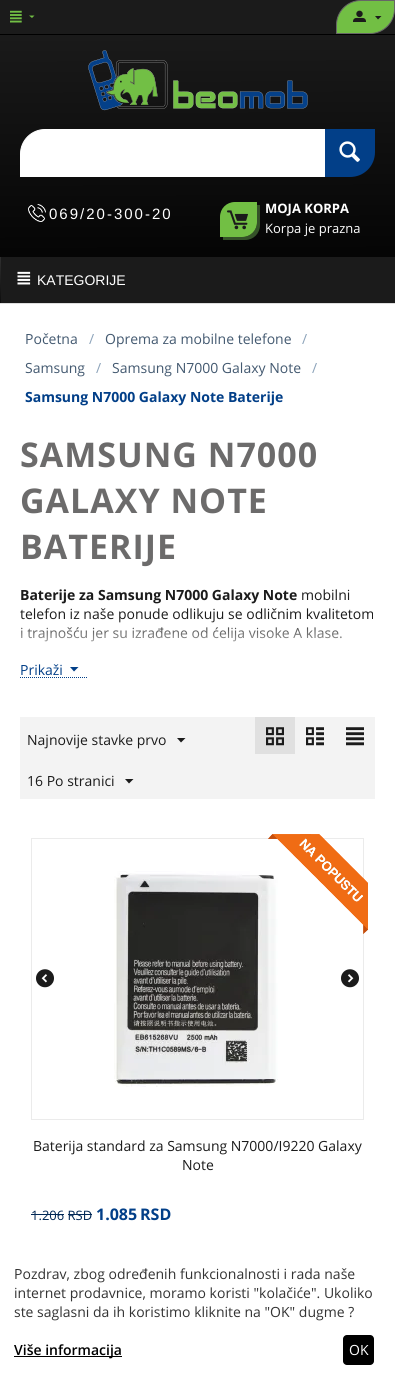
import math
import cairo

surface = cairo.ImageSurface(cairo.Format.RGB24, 395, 1379)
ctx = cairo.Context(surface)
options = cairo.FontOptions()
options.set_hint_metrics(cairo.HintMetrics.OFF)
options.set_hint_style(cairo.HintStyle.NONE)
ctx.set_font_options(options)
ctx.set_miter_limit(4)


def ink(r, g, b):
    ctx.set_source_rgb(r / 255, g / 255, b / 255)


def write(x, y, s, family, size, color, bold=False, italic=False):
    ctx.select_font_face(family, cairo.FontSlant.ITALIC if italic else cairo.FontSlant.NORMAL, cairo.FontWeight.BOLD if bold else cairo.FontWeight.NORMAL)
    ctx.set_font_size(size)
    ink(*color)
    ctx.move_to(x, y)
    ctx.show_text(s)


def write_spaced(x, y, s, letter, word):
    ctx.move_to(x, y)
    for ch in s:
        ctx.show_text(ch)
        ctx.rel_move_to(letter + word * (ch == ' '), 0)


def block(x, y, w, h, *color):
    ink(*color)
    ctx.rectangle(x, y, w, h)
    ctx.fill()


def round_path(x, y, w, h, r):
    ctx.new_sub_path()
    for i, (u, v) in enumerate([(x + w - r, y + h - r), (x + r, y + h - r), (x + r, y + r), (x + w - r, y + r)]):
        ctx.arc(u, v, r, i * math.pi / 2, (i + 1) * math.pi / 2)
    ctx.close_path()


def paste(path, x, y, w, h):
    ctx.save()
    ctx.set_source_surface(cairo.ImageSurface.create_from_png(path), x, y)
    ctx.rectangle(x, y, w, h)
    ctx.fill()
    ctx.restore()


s1 = dict(family="Open Sans", size=13, color=(255, 255, 255), bold=True)
s2 = dict(family="Open Sans", size=13, color=(255, 255, 255))
s3 = dict(family="Liberation Sans", size=14, color=(255, 255, 255))
s4 = dict(family="Open Sans", size=14, color=(67, 89, 112))
s5 = dict(family="Open Sans", size=14, color=(140, 163, 186))
s6 = dict(family="Open Sans", size=14, color=(2, 63, 136), bold=True)
s7 = dict(family="Open Sans", size=14, color=(27, 27, 27), bold=True)
s8 = dict(family="Open Sans", size=14, color=(27, 27, 27))
s9 = dict(family="Open Sans", size=14, color=(2, 63, 136))
s10 = dict(family="Open Sans", size=13, color=(1, 40, 86))
s11 = dict(family="Open Sans", size=16, color=(2, 63, 136), bold=True)
s12 = dict(family="Open Sans", size=14, color=(51, 51, 51))
s13 = dict(family="Open Sans SemiBold", size=14, color=(0, 0, 0))
s14 = dict(family="Open Sans", size=14, color=(255, 255, 255))

ink(255, 255, 255)
ctx.paint()
block(0, 0, 395, 34, 27, 27, 27)
block(0, 34, 395, 1, 0, 0, 0)
paste("pic1.png", 10, 10, 12, 13)
ink(114, 191, 69)
ctx.new_path()
ctx.move_to(32, 18)
ctx.line_to(29, 15.5)
ctx.line_to(34.5, 15.5)
ctx.close_path()
ctx.fill()
ink(114, 191, 68)
ctx.new_path()
ctx.move_to(361, 0.5)
ctx.line_to(394.5, 0.5)
ctx.line_to(394.5, 9)
ctx.curve_to(394.5, 22.5, 383.5, 33.5, 370, 33.5)
ctx.line_to(336.5, 33.5)
ctx.line_to(336.5, 25)
ctx.curve_to(336.5, 11.5, 347.5, 0.5, 361, 0.5)
ctx.close_path()
ctx.fill_preserve()
ink(102, 102, 102)
ctx.set_line_width(1)
ctx.stroke()
paste("pic2.png", 353, 10, 13, 12)
ink(27, 27, 27)
ctx.new_path()
ctx.move_to(378, 19.5)
ctx.line_to(375, 16)
ctx.line_to(381.5, 16)
ctx.close_path()
ctx.fill()
gradient = cairo.LinearGradient(197, 35, 198, 304)
gradient.add_color_stop_rgba(0, 0.102, 0.102, 0.102, 1)
gradient.add_color_stop_rgba(1, 0, 0, 0, 1)
ctx.set_source(gradient)
ctx.rectangle(0, 35, 395, 222)
ctx.fill()
paste("pic3.png", 88, 50, 220, 61)
ink(255, 255, 255)
ctx.new_path()
ctx.move_to(45, 129.5)
ctx.line_to(339.5, 129.5)
ctx.line_to(339.5, 176.5)
ctx.line_to(20.5, 176.5)
ctx.line_to(20.5, 154)
ctx.curve_to(20.5, 140.5, 31.5, 129.5, 45, 129.5)
ctx.close_path()
ctx.fill_preserve()
ctx.stroke()
ink(2, 63, 136)
ctx.new_path()
ctx.move_to(325, 129)
ctx.line_to(375, 129)
ctx.line_to(375, 152)
ctx.curve_to(375, 166, 364, 177, 350, 177)
ctx.line_to(325, 177)
ctx.close_path()
ctx.fill()
paste("pic4.png", 339, 141, 21, 21)
paste("pic5.png", 28, 204, 18, 18)
ctx.select_font_face("Liberation Sans")
ctx.set_font_size(15)
ink(255, 255, 255)
write_spaced(49, 219, "069/20-300-20", 2, 0)
ink(52, 82, 40)
ctx.new_path()
ctx.move_to(223, 237)
ctx.line_to(223, 240)
ctx.line_to(245, 240)
ctx.curve_to(253.5, 240, 260, 233.5, 260, 225)
ctx.line_to(260, 205)
ctx.line_to(257, 205)
ctx.line_to(257, 222)
ctx.curve_to(257, 230.5, 250.5, 237, 242, 237)
ctx.close_path()
ctx.fill()
ink(114, 191, 68)
ctx.new_path()
ctx.move_to(235, 202)
ctx.line_to(257, 202)
ctx.line_to(257, 222)
ctx.curve_to(257, 230.5, 250.5, 237, 242, 237)
ctx.line_to(220, 237)
ctx.line_to(220, 217)
ctx.curve_to(220, 208.5, 226.5, 202, 235, 202)
ctx.close_path()
ctx.fill()
paste("pic6.png", 227, 210, 21, 20)
write(265, 213, "MOJA KORPA", **s1)
write(265, 233, "Korpa je prazna", **s2)
gradient = cairo.LinearGradient(198, 303, 197, 257)
gradient.add_color_stop_rgba(0, 0, 0, 0, 1)
gradient.add_color_stop_rgba(0, 0.039, 0.039, 0.039, 1)
gradient.add_color_stop_rgba(1, 0.176, 0.176, 0.176, 1)
ctx.set_source(gradient)
ctx.rectangle(0, 257, 1, 46)
ctx.fill()
block(0, 303, 395, 1, 222, 222, 222)
block(1, 257, 394, 46, 27, 27, 27)
paste("pic7.png", 17, 271, 14, 14)
write(37, 285, "KATEGORIJE", **s3)
write(25, 344, "Početna", **s4)
write(89, 344, "/", **s5)
write(105, 344, "Oprema za mobilne telefone", **s4)
write(302, 344, "/", **s5)
write(25, 373, "Samsung", **s4)
write(96, 373, "/", **s5)
write(112, 373, "Samsung N7000 Galaxy Note", **s4)
write(312, 373, "/", **s5)
write(25, 402, "Samsung N7000 Galaxy Note Baterije", **s6)
ctx.set_font_size(34)
ink(108, 107, 107)
write_spaced(20, 467, "SAMSUNG N7000", 1, 0)
write_spaced(20, 513, "GALAXY NOTE", 1, 0)
write_spaced(20, 559, "BATERIJE", 1, 0)
write(20, 600, "Baterije za Samsung N7000 Galaxy Note", **s7)
write(301, 600, "mobilni", **s8)
write(20, 619, "telefon iz naše ponude odlikuju se odličnim kvalitetom", **s8)
write(20, 638, "i trajnošću jer su izrađene od ćelija visoke A klase.", **s8)
gradient = cairo.LinearGradient(198, 660, 198, 618)
gradient.add_color_stop_rgba(0, 1, 1, 1, 1)
gradient.add_color_stop_rgba(1, 1, 1, 1, 0)
ctx.set_source(gradient)
ctx.rectangle(21, 619, 321, 23)
ctx.fill()
write(20, 675, "Prikaži", **s9)
ctx.new_path()
ctx.move_to(74, 671.5)
ctx.line_to(70, 667)
ctx.line_to(78.5, 667)
ctx.close_path()
ctx.fill()
ctx.new_path()
ctx.move_to(20, 677.5)
ctx.line_to(87, 677.5)
ctx.set_dash([1, 1])
ctx.stroke()
block(20, 717, 355, 82, 243, 243, 243)
write(27, 745, "Najnovije stavke prvo", **s8)
ctx.new_path()
ctx.move_to(181, 742.5)
ctx.line_to(177, 738)
ctx.line_to(185.5, 738)
ctx.close_path()
ctx.fill()
block(255, 717, 40, 37, 224, 224, 224)
paste("pic8.png", 266, 727, 18, 19)
paste("pic9.png", 306, 727, 18, 19)
paste("pic10.png", 346, 727, 18, 19)
write(27, 786, "16 Po stranici", **s8)
ctx.new_path()
ctx.move_to(129, 783.5)
ctx.line_to(125, 779)
ctx.line_to(133.5, 779)
ctx.close_path()
ctx.fill()
ctx.rectangle(31.5, 838.5, 332, 281)
ink(235, 235, 235)
ctx.set_dash([])
ctx.stroke()
paste("pic12.png", 114, 871, 164, 216)
paste("pic11.png", 268, 834, 100, 100)
paste("pic13.png", 36, 969, 18, 19)
paste("pic14.png", 341, 969, 18, 19)
write(33, 1151, "Baterija standard za Samsung N7000/I9220 Galaxy", **s8)
write(182, 1170, "Note", **s8)
write(31, 1220, "1.206 RSD", **s10)
block(31, 1214, 33, 1, 1, 40, 86)
block(68, 1214, 24, 1, 1, 40, 86)
write(96, 1220, "1.085", **s11)
write(140, 1220, "RSD", **s11)
write(14, 1279, "Pozdrav, zbog određenih funkcionalnosti i rada naše", **s12)
write(14, 1298, "internet prodavnice, moramo koristi \"kolačiće\". Ukoliko", **s12)
write(14, 1317, "ste saglasni da ih koristimo kliknite na \"OK\" dugme ?", **s12)
block(14, 1356, 108, 1, 0, 0, 0)
write(14, 1355, "Više informacija", **s13)
round_path(343, 1335, 31, 30, 4)
ctx.fill()
write(349, 1355, "OK", **s14)
surface.write_to_png("screenshot.png")
